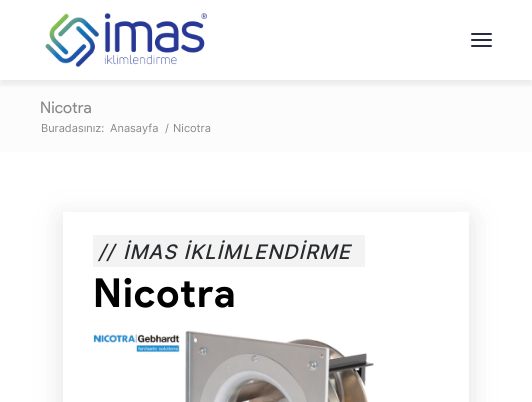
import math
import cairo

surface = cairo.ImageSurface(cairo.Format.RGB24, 532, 402)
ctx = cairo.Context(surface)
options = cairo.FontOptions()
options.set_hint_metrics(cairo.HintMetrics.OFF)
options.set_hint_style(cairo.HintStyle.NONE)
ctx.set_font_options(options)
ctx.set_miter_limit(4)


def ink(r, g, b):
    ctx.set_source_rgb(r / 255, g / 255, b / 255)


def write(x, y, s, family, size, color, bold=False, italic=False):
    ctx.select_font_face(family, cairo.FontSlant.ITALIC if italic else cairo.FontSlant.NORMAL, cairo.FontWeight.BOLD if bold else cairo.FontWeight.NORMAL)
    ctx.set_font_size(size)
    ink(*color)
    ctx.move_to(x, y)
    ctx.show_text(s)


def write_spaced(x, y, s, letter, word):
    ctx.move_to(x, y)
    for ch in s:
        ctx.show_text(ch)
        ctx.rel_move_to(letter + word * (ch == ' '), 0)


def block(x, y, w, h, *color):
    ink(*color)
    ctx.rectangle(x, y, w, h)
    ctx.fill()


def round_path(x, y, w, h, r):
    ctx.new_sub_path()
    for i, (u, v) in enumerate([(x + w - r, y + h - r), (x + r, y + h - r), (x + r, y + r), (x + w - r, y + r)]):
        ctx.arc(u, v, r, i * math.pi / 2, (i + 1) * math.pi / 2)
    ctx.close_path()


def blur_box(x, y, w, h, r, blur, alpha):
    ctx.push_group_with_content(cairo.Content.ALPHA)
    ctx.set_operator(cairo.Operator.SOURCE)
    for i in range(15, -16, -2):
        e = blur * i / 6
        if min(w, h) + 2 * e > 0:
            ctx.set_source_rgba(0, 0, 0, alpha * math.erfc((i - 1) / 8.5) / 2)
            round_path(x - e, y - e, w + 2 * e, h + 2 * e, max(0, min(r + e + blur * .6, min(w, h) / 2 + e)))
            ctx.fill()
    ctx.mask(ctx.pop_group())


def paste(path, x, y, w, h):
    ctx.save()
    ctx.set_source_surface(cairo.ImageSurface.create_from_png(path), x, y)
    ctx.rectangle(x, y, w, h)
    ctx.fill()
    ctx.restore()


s1 = dict(family="Product Sans", size=16, color=(136, 136, 136))
s2 = dict(family="Inter", size=11, color=(136, 136, 136))

ink(255, 255, 255)
ctx.paint()
block(0, 80, 532, 72, 252, 252, 252)
ctx.save()
ctx.rectangle(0, 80, 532, 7)
ctx.clip()
ink(0, 0, 0)
blur_box(0, 5, 532, 80, 0, 3, 0.07)
ctx.restore()
paste("pic1.png", 45, 13, 162, 54)
ink(40, 42, 67)
round_path(471, 39, 21, 2, 1)
ctx.fill()
round_path(471, 33, 21, 2, 1)
ctx.fill()
round_path(471, 45, 21, 2, 1)
ctx.fill()
write(40, 113, "Nicotra", **s1)
write(41, 132, "Buradasınız:", **s2)
write(110, 132, "Anasayfa", **s2)
write(165, 132, "/", **s2)
write(173, 132, "Nicotra", **s2)
ctx.save()
ctx.set_fill_rule(cairo.FillRule.EVEN_ODD)
ctx.new_path()
ctx.move_to(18, 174)
ctx.line_to(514, 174)
ctx.line_to(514, 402)
ctx.line_to(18, 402)
ctx.close_path()
ctx.move_to(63, 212)
ctx.line_to(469, 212)
ctx.line_to(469, 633)
ctx.line_to(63, 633)
ctx.close_path()
ctx.clip()
ink(100, 100, 111)
blur_box(63, 219, 406, 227, 0, 14.5, 0.2)
ctx.restore()
block(93, 235, 272, 32, 243, 243, 243)
ctx.select_font_face("Inter Medium", cairo.FontSlant.ITALIC)
ctx.set_font_size(20)
ink(40, 43, 45)
write_spaced(98, 259, "//", 1, 0)
write_spaced(123, 259, "İMAS İKLİMLENDİRME", 1, 0)
ctx.select_font_face("Product Sans", cairo.FontSlant.NORMAL, cairo.FontWeight.BOLD)
ctx.set_font_size(40)
ink(0, 0, 0)
write_spaced(93, 307, "Nicotra", 0.75, 0)
paste("pic2.png", 93, 330, 281, 72)
surface.write_to_png("screenshot.png")
